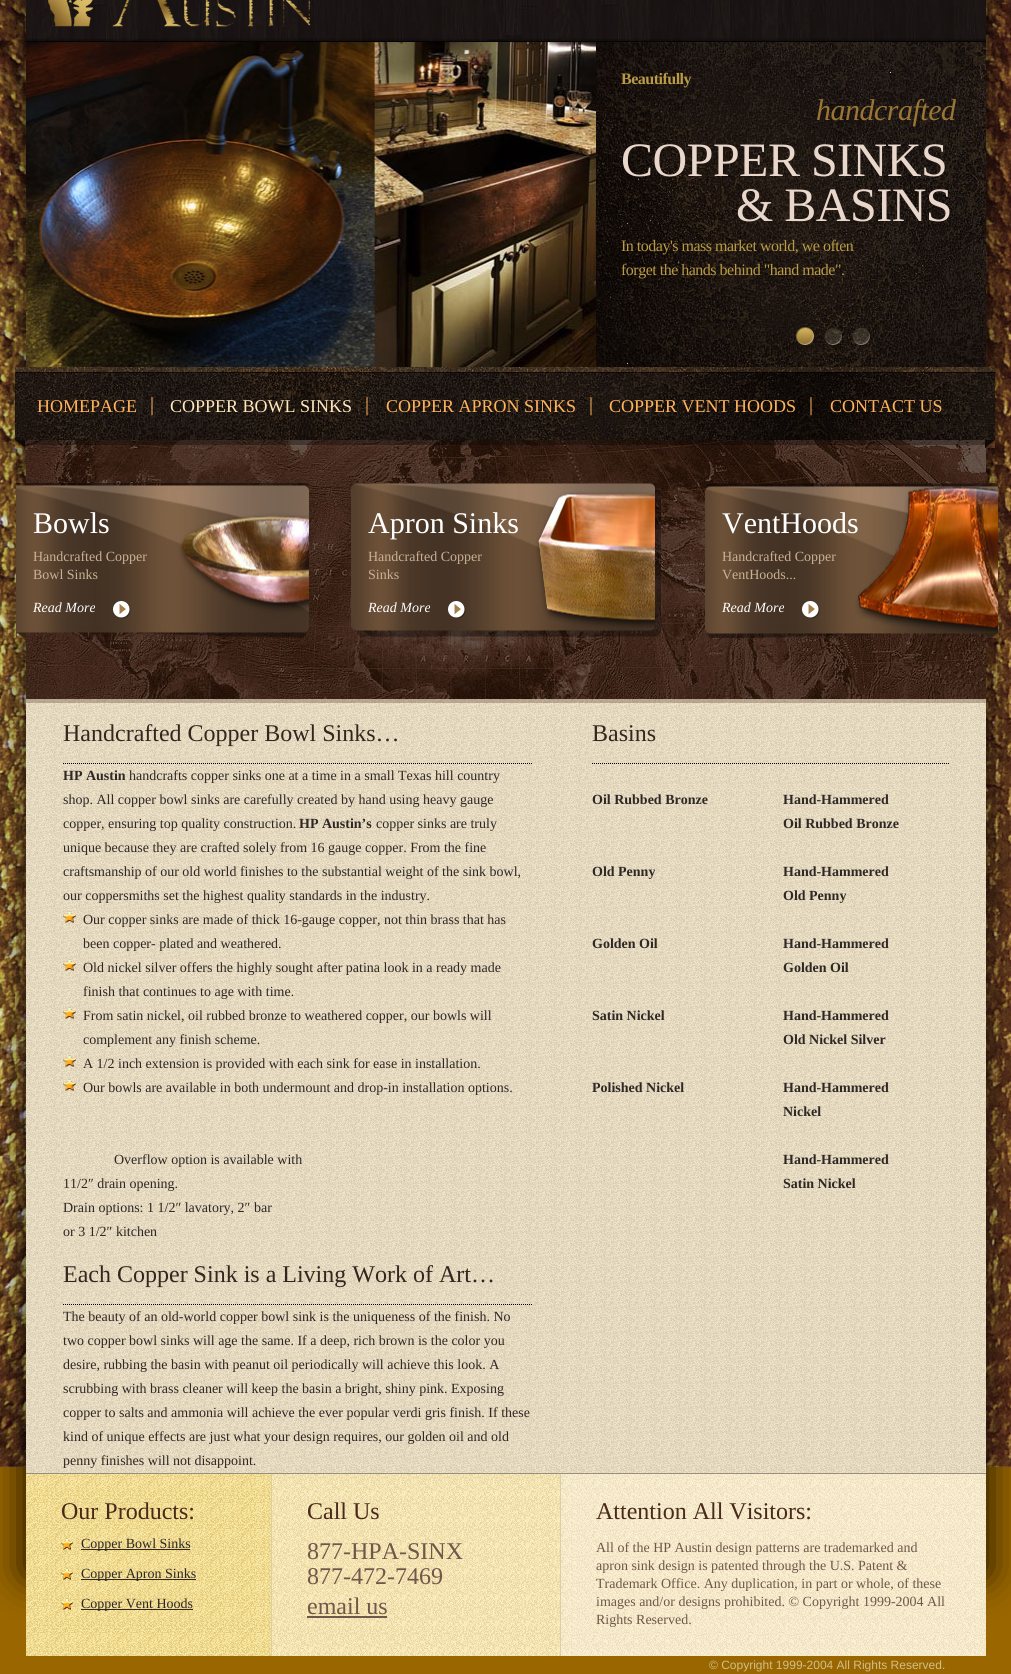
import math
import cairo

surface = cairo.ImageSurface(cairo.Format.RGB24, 1011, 1674)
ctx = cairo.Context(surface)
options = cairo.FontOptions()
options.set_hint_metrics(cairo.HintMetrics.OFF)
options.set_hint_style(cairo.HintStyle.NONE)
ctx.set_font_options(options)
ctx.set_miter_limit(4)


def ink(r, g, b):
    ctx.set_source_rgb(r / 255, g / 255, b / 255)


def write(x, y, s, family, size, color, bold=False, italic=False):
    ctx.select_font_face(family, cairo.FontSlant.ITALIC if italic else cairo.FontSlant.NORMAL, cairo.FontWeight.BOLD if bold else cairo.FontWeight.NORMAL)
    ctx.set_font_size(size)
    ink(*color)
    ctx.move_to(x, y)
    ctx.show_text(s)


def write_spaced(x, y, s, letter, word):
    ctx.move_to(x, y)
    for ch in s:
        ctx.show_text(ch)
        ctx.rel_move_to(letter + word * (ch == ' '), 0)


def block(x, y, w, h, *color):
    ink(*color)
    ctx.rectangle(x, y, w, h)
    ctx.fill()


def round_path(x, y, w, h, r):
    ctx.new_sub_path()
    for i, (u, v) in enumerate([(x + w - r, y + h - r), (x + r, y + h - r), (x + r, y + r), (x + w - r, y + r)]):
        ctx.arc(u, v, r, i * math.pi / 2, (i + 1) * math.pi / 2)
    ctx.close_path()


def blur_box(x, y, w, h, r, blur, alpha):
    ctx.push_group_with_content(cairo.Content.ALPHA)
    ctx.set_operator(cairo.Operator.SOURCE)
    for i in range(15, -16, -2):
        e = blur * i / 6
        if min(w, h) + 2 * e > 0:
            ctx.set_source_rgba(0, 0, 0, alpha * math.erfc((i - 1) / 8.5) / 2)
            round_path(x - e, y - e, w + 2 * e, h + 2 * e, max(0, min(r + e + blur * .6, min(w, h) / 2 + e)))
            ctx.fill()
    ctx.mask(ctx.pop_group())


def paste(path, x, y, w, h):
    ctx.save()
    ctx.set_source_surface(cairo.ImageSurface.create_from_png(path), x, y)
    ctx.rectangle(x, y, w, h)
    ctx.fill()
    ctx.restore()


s1 = dict(family="Liberation Serif", size=18, color=(255, 180, 92))
s2 = dict(family="Liberation Serif", size=20, color=(255, 180, 92))
s3 = dict(family="Liberation Serif", size=18, color=(255, 232, 188))
s4 = dict(family="Liberation Serif", size=30, color=(255, 255, 255))
s5 = dict(family="Liberation Serif", size=14, color=(201, 177, 149))
s6 = dict(family="Liberation Serif", size=14, color=(255, 255, 255), italic=True)
s7 = dict(family="Liberation Serif", size=24, color=(52, 38, 31))
s8 = dict(family="Liberation Serif", size=14, color=(46, 39, 36), bold=True)
s9 = dict(family="Liberation Serif", size=14, color=(46, 39, 36))
s10 = dict(family="Liberation Serif", size=24, color=(73, 41, 26))
s11 = dict(family="Liberation Serif", size=24, color=(111, 87, 74))
s12 = dict(family="Liberation Serif", size=14, color=(111, 87, 74))
s13 = dict(family="Liberation Sans", size=12, color=(209, 191, 138))

ink(153, 102, 0)
ctx.paint()
paste("pic1.png", 0, 0, 1011, 1467)
ink(0, 0, 0)
blur_box(26, -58, 960, 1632, 0, 20, 0.9)
paste("pic2.png", 26, 0, 960, 42)
paste("pic3.png", 48, 0, 263, 27)
paste("pic4.png", 26, 42, 570, 325)
paste("pic5.png", 596, 42, 390, 325)
ctx.select_font_face("Liberation Serif", cairo.FontSlant.NORMAL, cairo.FontWeight.BOLD)
ctx.set_font_size(16)
ink(185, 155, 69)
write_spaced(621, 84, "Beautifully", -0.5, 0)
ctx.select_font_face("Liberation Serif", cairo.FontSlant.ITALIC)
ctx.set_font_size(30)
ink(153, 118, 53)
write_spaced(816, 120, "handcrafted", -0.5, 0)
ctx.select_font_face("Liberation Serif")
ctx.set_font_size(48)
ink(233, 215, 204)
write_spaced(621, 176, "COPPER SINKS", -0.5, 0)
write_spaced(736, 221, "& BASINS", -0.5, 0)
ctx.set_font_size(16)
ink(185, 155, 69)
write_spaced(621, 251, "In today's mass market world, we often", -0.5, 0)
write_spaced(621, 275, "forget the hands behind \"hand made\".", -0.5, 0)
paste("pic6.png", 796, 327, 18, 18)
paste("pic7.png", 824, 327, 18, 18)
paste("pic8.png", 852, 327, 18, 18)
paste("pic9.png", 15, 367, 980, 81)
write(37, 412, "HOMEPAGE", **s1)
write(150, 411, "|", **s2)
write(170, 412, "COPPER BOWL SINKS", **s3)
write(365, 411, "|", **s2)
write(386, 412, "COPPER APRON SINKS", **s1)
write(589, 411, "|", **s2)
write(609, 412, "COPPER VENT HOODS", **s1)
write(809, 411, "|", **s2)
write(830, 412, "CONTACT US", **s1)
paste("pic10.png", 26, 448, 960, 255)
paste("pic11.png", 16, 483, 293, 155)
write(33, 533, "Bowls", **s4)
write(33, 561, "Handcrafted Copper", **s5)
write(33, 579, "Bowl Sinks", **s5)
paste("pic12.png", 113, 601, 18, 18)
write(33, 612, "Read More", **s6)
paste("pic13.png", 351, 483, 310, 155)
write(368, 533, "Apron Sinks", **s4)
write(368, 561, "Handcrafted Copper", **s5)
write(368, 579, "Sinks", **s5)
paste("pic14.png", 448, 601, 18, 18)
write(368, 612, "Read More", **s6)
paste("pic15.png", 705, 483, 293, 155)
write(722, 533, "VentHoods", **s4)
write(722, 561, "Handcrafted Copper", **s5)
write(722, 579, "VentHoods...", **s5)
paste("pic12.png", 802, 601, 18, 18)
write(722, 612, "Read More", **s6)
paste("pic16.png", 26, 703, 960, 770)
block(26, 1473, 960, 1, 152, 144, 126)
ctx.new_path()
ctx.move_to(63, 763.5)
ctx.line_to(533, 763.5)
ink(0, 0, 0)
ctx.set_line_width(1)
ctx.set_dash([1, 1])
ctx.stroke()
write(63, 741, "Handcrafted Copper Bowl Sinks…", **s7)
write(63, 780, "HP Austin", **s8)
write(129, 780, "handcrafts copper sinks one at a time in a small Texas hill country", **s9)
write(63, 804, "shop. All copper bowl sinks are carefully created by hand using heavy gauge", **s9)
write(63, 828, "copper, ensuring top quality construction.", **s9)
write(299, 828, "HP Austin’s", **s8)
write(376, 828, "copper sinks are truly", **s9)
write(63, 852, "unique because they are crafted solely from 16 gauge copper. From the fine", **s9)
write(63, 876, "craftsmanship of our old world finishes to the substantial weight of the sink bowl,", **s9)
write(63, 900, "our coppersmiths set the highest quality standards in the industry.", **s9)
paste("pic17.png", 63, 911, 13, 12)
write(83, 924, "Our copper sinks are made of thick 16-gauge copper, not thin brass that has", **s9)
write(83, 948, "been copper- plated and weathered.", **s9)
paste("pic18.png", 63, 959, 13, 12)
write(83, 972, "Old nickel silver offers the highly sought after patina look in a ready made", **s9)
write(83, 996, "finish that continues to age with time.", **s9)
paste("pic19.png", 63, 1007, 13, 12)
write(83, 1020, "From satin nickel, oil rubbed bronze to weathered copper, our bowls will", **s9)
write(83, 1044, "complement any finish scheme.", **s9)
paste("pic20.png", 63, 1055, 13, 12)
write(83, 1068, "A 1/2 inch extension is provided with each sink for ease in installation.", **s9)
paste("pic21.png", 63, 1079, 13, 12)
write(83, 1092, "Our bowls are available in both undermount and drop-in installation options.", **s9)
write(114, 1164, "Overflow option is available with", **s9)
write(63, 1188, "11/2″ drain opening.", **s9)
write(63, 1212, "Drain options: 1 1/2″ lavatory, 2″ bar", **s9)
write(63, 1236, "or 3 1/2″ kitchen", **s9)
ctx.new_path()
ctx.move_to(63, 1304.5)
ctx.line_to(533, 1304.5)
ink(0, 0, 0)
ctx.stroke()
write(63, 1282, "Each Copper Sink is a Living Work of Art…", **s7)
write(63, 1321, "The beauty of an old-world copper bowl sink is the uniqueness of the finish. No", **s9)
write(63, 1345, "two copper bowl sinks will age the same. If a deep, rich brown is the color you", **s9)
write(63, 1369, "desire, rubbing the basin with peanut oil periodically will achieve this look. A", **s9)
write(63, 1393, "scrubbing with brass cleaner will keep the basin a bright, shiny pink. Exposing", **s9)
write(63, 1417, "copper to salts and ammonia will achieve the ever popular verdi gris finish. If these", **s9)
write(63, 1441, "kind of unique effects are just what your design requires, our golden oil and old", **s9)
write(63, 1465, "penny finishes will not disappoint.", **s9)
ctx.new_path()
ctx.move_to(592, 763.5)
ctx.line_to(949, 763.5)
ink(0, 0, 0)
ctx.stroke()
write(592, 741, "Basins", **s7)
write(592, 804, "Oil Rubbed Bronze", **s8)
write(783, 804, "Hand-Hammered", **s8)
write(783, 828, "Oil Rubbed Bronze", **s8)
write(592, 876, "Old Penny", **s8)
write(783, 876, "Hand-Hammered", **s8)
write(783, 900, "Old Penny", **s8)
write(592, 948, "Golden Oil", **s8)
write(783, 948, "Hand-Hammered", **s8)
write(783, 972, "Golden Oil", **s8)
write(592, 1020, "Satin Nickel", **s8)
write(783, 1020, "Hand-Hammered", **s8)
write(783, 1044, "Old Nickel Silver", **s8)
write(592, 1092, "Polished Nickel", **s8)
write(783, 1092, "Hand-Hammered", **s8)
write(783, 1116, "Nickel", **s8)
write(783, 1164, "Hand-Hammered", **s8)
write(783, 1188, "Satin Nickel", **s8)
paste("pic22.png", 26, 1474, 245, 182)
write(61, 1519, "Our Products:", **s10)
paste("pic23.png", 61, 1538, 12, 12)
block(81, 1549, 109, 1, 46, 41, 31)
write(81, 1548, "Copper Bowl Sinks", **s9)
paste("pic24.png", 61, 1568, 12, 12)
block(81, 1579, 115, 1, 46, 41, 31)
write(81, 1578, "Copper Apron Sinks", **s9)
paste("pic25.png", 61, 1598, 12, 12)
block(81, 1609, 112, 1, 46, 41, 31)
write(81, 1608, "Copper Vent Hoods", **s9)
paste("pic26.png", 272, 1474, 288, 182)
block(560, 1474, 1, 182, 219, 207, 164)
block(271, 1474, 1, 182, 219, 207, 164)
write(307, 1519, "Call Us", **s10)
write(307, 1559, "877-HPA-SINX", **s11)
write(307, 1584, "877-472-7469", **s11)
write(307, 1614, "email us", **s11)
block(307, 1616, 80, 2, 111, 87, 74)
paste("pic27.png", 561, 1474, 425, 182)
write(596, 1519, "Attention All Visitors:", **s10)
write(596, 1552, "All of the HP Austin design patterns are trademarked and", **s12)
write(596, 1570, "apron sink design is patented through the U.S. Patent &", **s12)
write(596, 1588, "Trademark Office. Any duplication, in part or whole, of these", **s12)
write(596, 1606, "images and/or designs prohibited. © Copyright 1999-2004 All", **s12)
write(596, 1624, "Rights Reserved.", **s12)
write(709, 1669, "© Copyright 1999-2004 All Rights Reserved.", **s13)
surface.write_to_png("screenshot.png")
